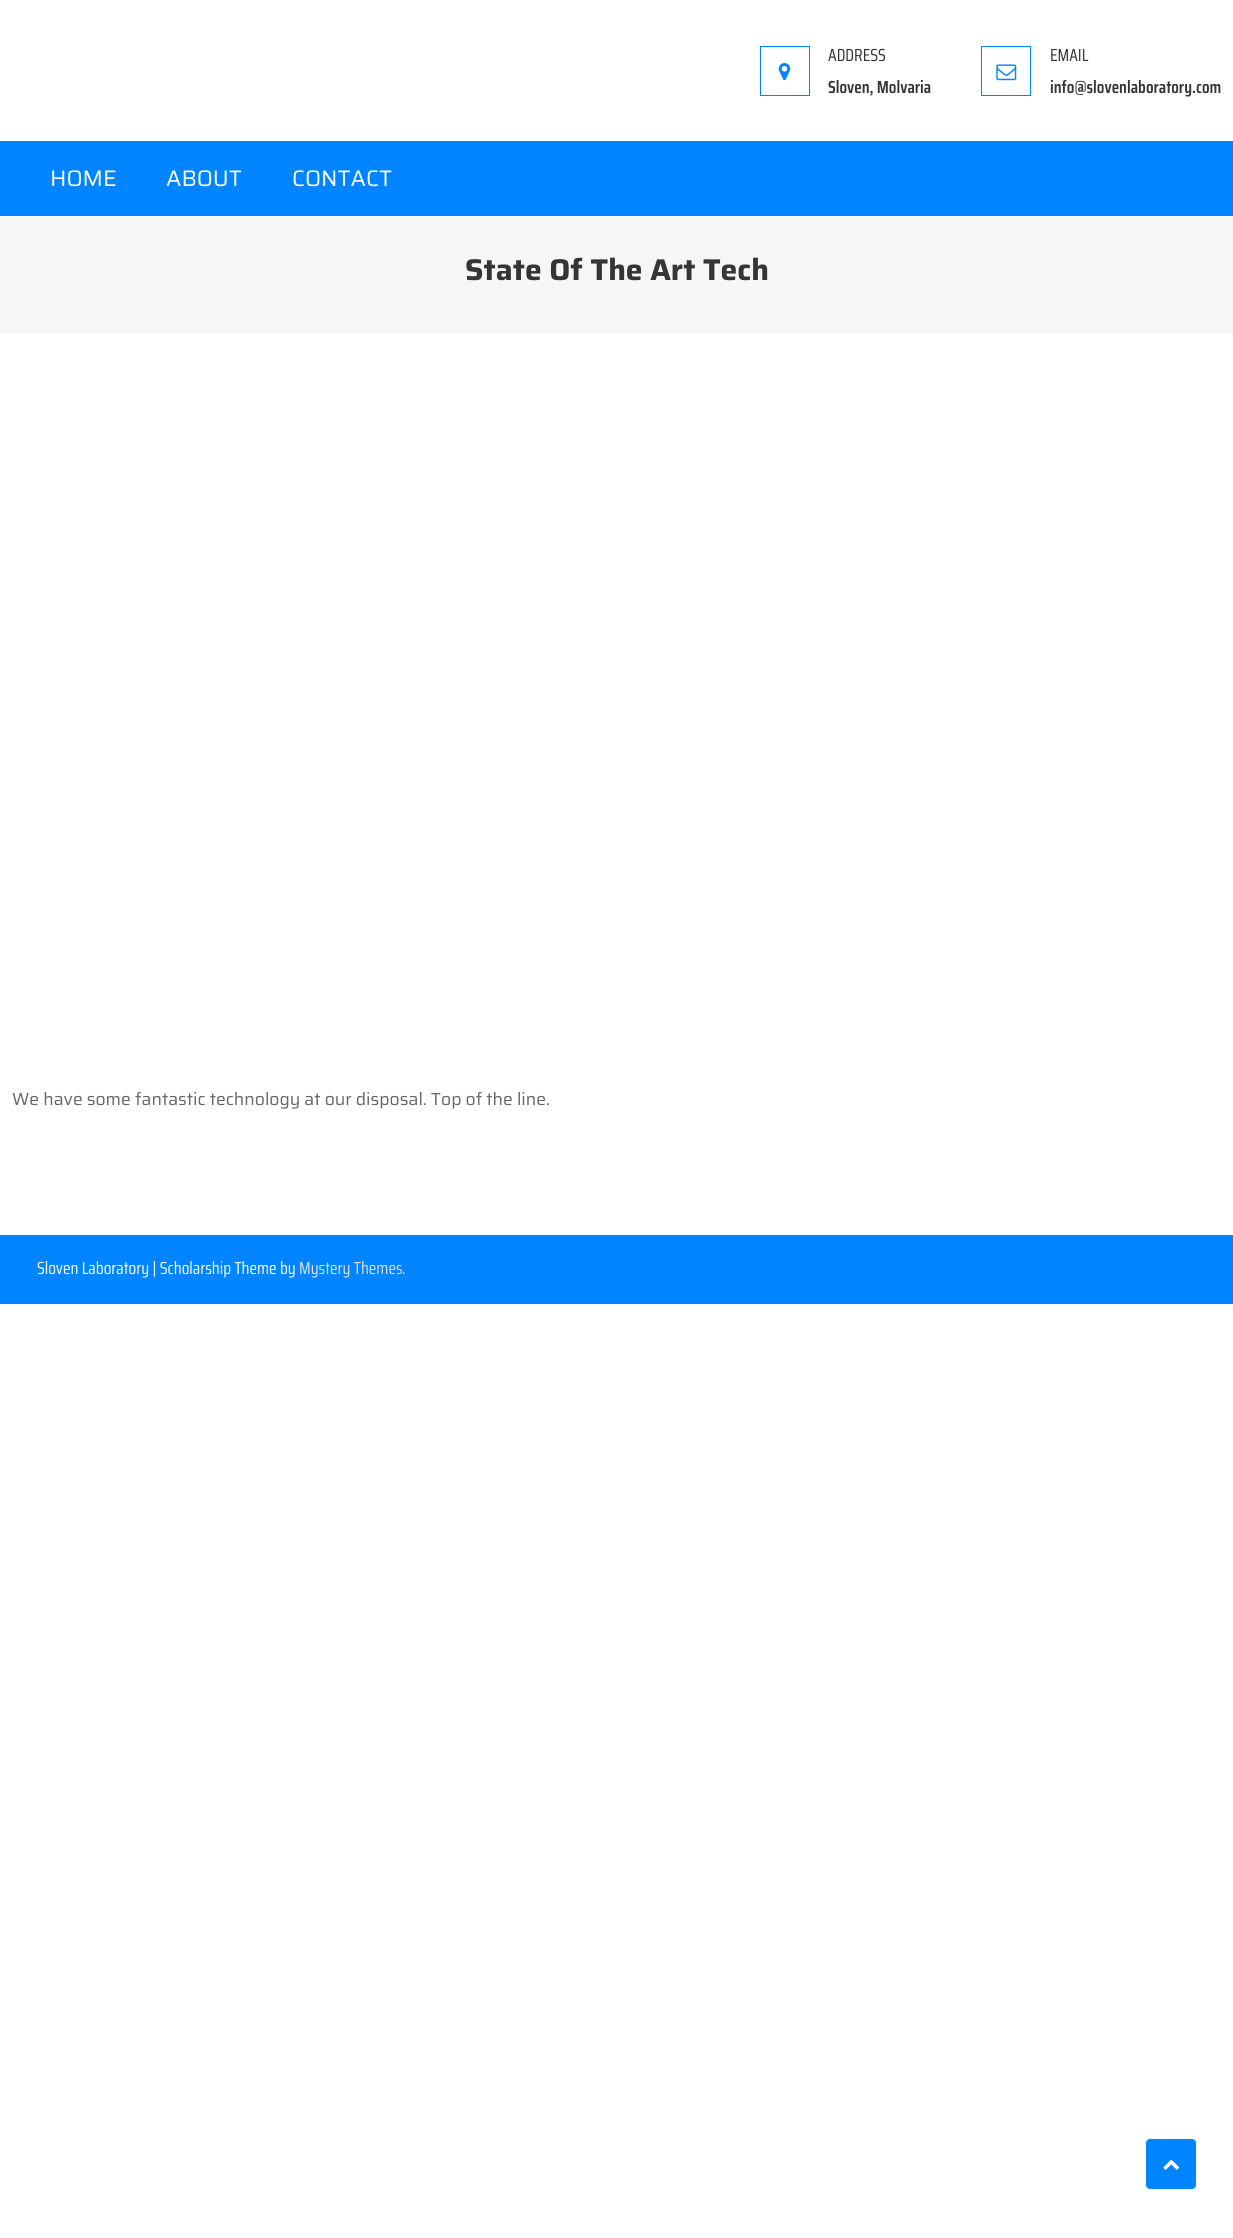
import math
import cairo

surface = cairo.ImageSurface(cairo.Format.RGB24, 1233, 2238)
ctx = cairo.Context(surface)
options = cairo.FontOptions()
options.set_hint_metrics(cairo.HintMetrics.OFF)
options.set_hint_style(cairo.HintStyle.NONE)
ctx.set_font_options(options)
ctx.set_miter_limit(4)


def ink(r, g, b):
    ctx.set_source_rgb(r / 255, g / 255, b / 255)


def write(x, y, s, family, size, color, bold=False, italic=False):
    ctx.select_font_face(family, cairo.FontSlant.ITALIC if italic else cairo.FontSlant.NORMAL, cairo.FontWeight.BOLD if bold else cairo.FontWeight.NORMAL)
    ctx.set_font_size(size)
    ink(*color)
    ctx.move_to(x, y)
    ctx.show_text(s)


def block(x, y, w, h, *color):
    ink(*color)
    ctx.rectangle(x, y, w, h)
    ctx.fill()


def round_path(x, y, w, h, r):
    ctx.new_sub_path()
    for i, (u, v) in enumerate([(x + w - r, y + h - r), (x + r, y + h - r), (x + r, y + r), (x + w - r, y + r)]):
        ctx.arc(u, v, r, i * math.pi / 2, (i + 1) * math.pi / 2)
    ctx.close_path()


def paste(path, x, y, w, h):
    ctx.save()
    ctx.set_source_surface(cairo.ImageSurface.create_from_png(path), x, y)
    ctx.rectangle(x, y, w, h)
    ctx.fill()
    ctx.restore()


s1 = dict(family="Saira Condensed", size=17.5, color=(53, 53, 53))
s2 = dict(family="Saira Condensed SemiBold", size=17.5, color=(53, 53, 53))
s3 = dict(family="Saira", size=22.5, color=(255, 255, 255))
s4 = dict(family="Saira", size=30, color=(53, 53, 53), bold=True)
s5 = dict(family="Saira", size=17.5, color=(102, 102, 102))
s6 = dict(family="Saira Condensed", size=17.5, color=(255, 255, 255))
s7 = dict(family="Saira Condensed", size=17.5, color=(223, 223, 223))

ink(255, 255, 255)
ctx.paint()
ctx.rectangle(760.5, 46.5, 49, 49)
ink(0, 132, 255)
ctx.set_line_width(1)
ctx.stroke()
paste("pic1.png", 778, 63, 13, 18)
write(828, 61, "ADDRESS", **s1)
write(828, 93, "Sloven, Molvaria", **s2)
ctx.rectangle(981.5, 46.5, 49, 49)
ink(0, 132, 255)
ctx.stroke()
paste("pic2.png", 996, 64, 21, 17)
write(1050, 61, "EMAIL", **s1)
write(1050, 93, "info@slovenlaboratory.com", **s2)
block(0, 141, 1233, 75, 0, 132, 255)
write(50, 186, "HOME", **s3)
write(166, 186, "ABOUT", **s3)
write(292, 186, "CONTACT", **s3)
block(0, 216, 1233, 118, 246, 246, 246)
write(465, 280, "State Of The Art Tech", **s4)
write(12, 1105, "We have some fantastic technology at our disposal. Top of the line.", **s5)
block(0, 1235, 1233, 69, 0, 132, 255)
write(37, 1274, "Sloven Laboratory | Scholarship Theme by", **s6)
write(299, 1274, "Mystery Themes", **s7)
write(402, 1274, ".", **s6)
ink(0, 132, 255)
round_path(1146, 2139, 50, 50, 4)
ctx.fill()
paste("pic3.png", 1163, 2159, 17, 11)
surface.write_to_png("screenshot.png")
